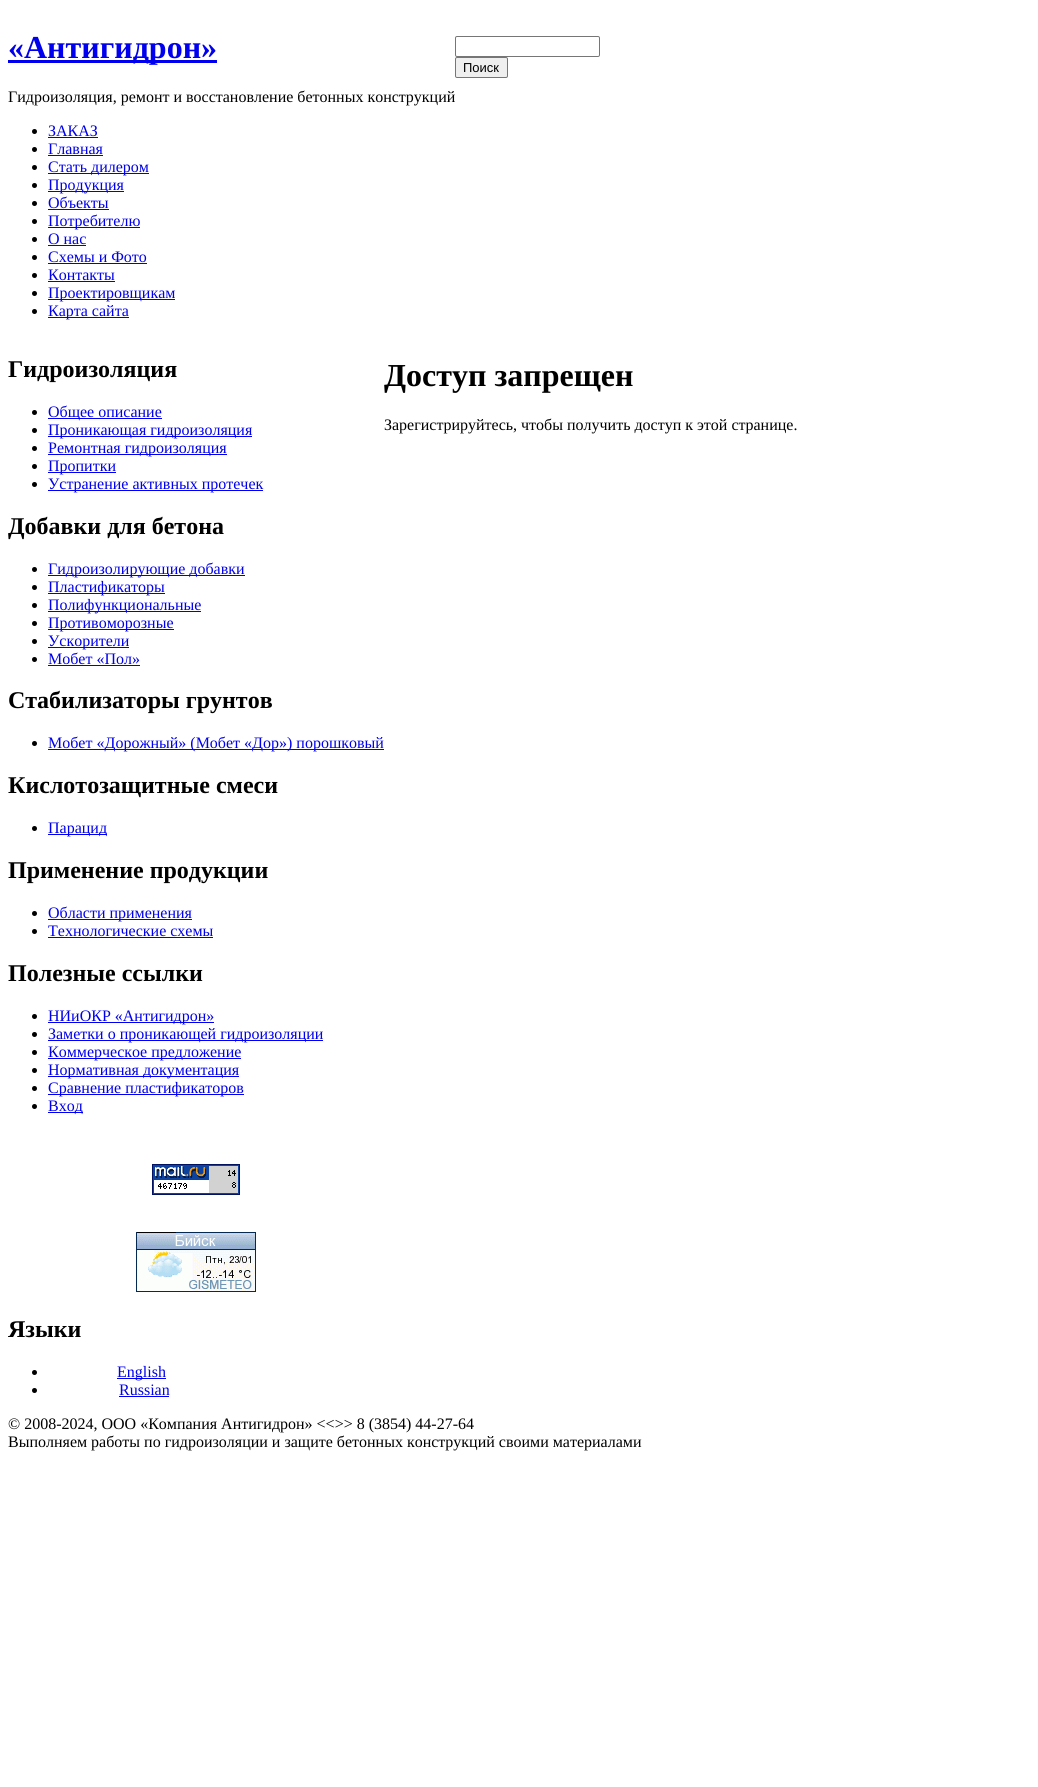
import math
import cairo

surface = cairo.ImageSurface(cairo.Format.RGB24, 1038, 1787)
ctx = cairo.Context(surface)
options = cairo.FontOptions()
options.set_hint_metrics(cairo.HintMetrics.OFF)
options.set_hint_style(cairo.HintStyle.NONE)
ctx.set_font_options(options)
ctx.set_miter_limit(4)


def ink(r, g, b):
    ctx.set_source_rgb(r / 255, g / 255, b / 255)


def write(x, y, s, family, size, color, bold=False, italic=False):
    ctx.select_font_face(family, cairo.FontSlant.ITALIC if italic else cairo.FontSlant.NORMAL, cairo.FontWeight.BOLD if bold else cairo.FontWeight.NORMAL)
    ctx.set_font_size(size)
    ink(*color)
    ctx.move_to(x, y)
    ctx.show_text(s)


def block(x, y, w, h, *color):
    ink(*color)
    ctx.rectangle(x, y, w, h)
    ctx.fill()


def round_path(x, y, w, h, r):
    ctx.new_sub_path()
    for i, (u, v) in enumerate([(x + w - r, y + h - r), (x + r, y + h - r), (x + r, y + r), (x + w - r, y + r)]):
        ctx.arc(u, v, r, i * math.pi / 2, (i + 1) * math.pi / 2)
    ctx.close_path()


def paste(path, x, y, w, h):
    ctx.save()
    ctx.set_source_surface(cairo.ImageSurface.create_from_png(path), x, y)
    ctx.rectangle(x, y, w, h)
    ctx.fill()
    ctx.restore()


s1 = dict(family="Liberation Serif", size=32, color=(0, 0, 238), bold=True)
s2 = dict(family="Liberation Serif", size=16, color=(0, 0, 0))
s3 = dict(family="Liberation Sans", size=13, color=(0, 0, 0))
s4 = dict(family="Liberation Serif", size=16, color=(0, 0, 238))
s5 = dict(family="Liberation Serif", size=24, color=(0, 0, 0), bold=True)
s6 = dict(family="Liberation Serif", size=32, color=(0, 0, 0), bold=True)

ink(255, 255, 255)
ctx.paint()
block(8, 60, 209, 3, 0, 0, 238)
write(8, 58, "«Антигидрон»", **s1)
write(8, 102, "Гидроизоляция, ремонт и восстановление бетонных конструкций", **s2)
round_path(455.5, 36.5, 144, 20, 1.5)
ink(118, 118, 118)
ctx.set_line_width(1)
ctx.stroke()
ink(239, 239, 239)
round_path(455.5, 57.5, 52, 20, 1.5)
ctx.fill_preserve()
ink(118, 118, 118)
ctx.stroke()
write(463, 72, "Поиск", **s3)
ctx.new_path()
ctx.arc(34.5, 131.5, 2.5, 0, 2 * math.pi)
ctx.fill()
write(48, 136, "ЗАКАЗ", **s4)
block(48, 137, 50, 1, 0, 0, 238)
ink(0, 0, 0)
ctx.new_path()
ctx.arc(34.5, 149.5, 2.5, 0, 2 * math.pi)
ctx.fill()
write(48, 154, "Главная", **s4)
block(48, 155, 55, 1, 0, 0, 238)
ink(0, 0, 0)
ctx.new_path()
ctx.arc(34.5, 167.5, 2.5, 0, 2 * math.pi)
ctx.fill()
block(48, 173, 101, 1, 0, 0, 238)
write(48, 172, "Стать дилером", **s4)
ink(0, 0, 0)
ctx.new_path()
ctx.arc(34.5, 185.5, 2.5, 0, 2 * math.pi)
ctx.fill()
block(48, 191, 76, 1, 0, 0, 238)
write(48, 190, "Продукция", **s4)
ink(0, 0, 0)
ctx.new_path()
ctx.arc(34.5, 203.5, 2.5, 0, 2 * math.pi)
ctx.fill()
write(48, 208, "Объекты", **s4)
block(48, 209, 61, 1, 0, 0, 238)
ink(0, 0, 0)
ctx.new_path()
ctx.arc(34.5, 221.5, 2.5, 0, 2 * math.pi)
ctx.fill()
block(48, 227, 92, 1, 0, 0, 238)
write(48, 226, "Потребителю", **s4)
ink(0, 0, 0)
ctx.new_path()
ctx.arc(34.5, 239.5, 2.5, 0, 2 * math.pi)
ctx.fill()
write(48, 244, "О нас", **s4)
block(48, 245, 38, 1, 0, 0, 238)
ink(0, 0, 0)
ctx.new_path()
ctx.arc(34.5, 257.5, 2.5, 0, 2 * math.pi)
ctx.fill()
write(48, 262, "Схемы и Фото", **s4)
block(48, 263, 99, 1, 0, 0, 238)
ink(0, 0, 0)
ctx.new_path()
ctx.arc(34.5, 275.5, 2.5, 0, 2 * math.pi)
ctx.fill()
write(48, 280, "Контакты", **s4)
block(48, 281, 67, 1, 0, 0, 238)
ink(0, 0, 0)
ctx.new_path()
ctx.arc(34.5, 293.5, 2.5, 0, 2 * math.pi)
ctx.fill()
block(48, 299, 127, 1, 0, 0, 238)
write(48, 298, "Проектировщикам", **s4)
ink(0, 0, 0)
ctx.new_path()
ctx.arc(34.5, 311.5, 2.5, 0, 2 * math.pi)
ctx.fill()
block(48, 317, 81, 1, 0, 0, 238)
write(48, 316, "Карта сайта", **s4)
write(8, 377, "Гидроизоляция", **s5)
ctx.new_path()
ctx.arc(34.5, 412.5, 2.5, 0, 2 * math.pi)
ctx.fill()
block(48, 418, 114, 1, 0, 0, 238)
write(48, 417, "Общее описание", **s4)
ink(0, 0, 0)
ctx.new_path()
ctx.arc(34.5, 430.5, 2.5, 0, 2 * math.pi)
ctx.fill()
block(48, 436, 204, 1, 0, 0, 238)
write(48, 435, "Проникающая гидроизоляция", **s4)
ink(0, 0, 0)
ctx.new_path()
ctx.arc(34.5, 448.5, 2.5, 0, 2 * math.pi)
ctx.fill()
block(48, 454, 179, 1, 0, 0, 238)
write(48, 453, "Ремонтная гидроизоляция", **s4)
ink(0, 0, 0)
ctx.new_path()
ctx.arc(34.5, 466.5, 2.5, 0, 2 * math.pi)
ctx.fill()
block(48, 472, 68, 1, 0, 0, 238)
write(48, 471, "Пропитки", **s4)
ink(0, 0, 0)
ctx.new_path()
ctx.arc(34.5, 484.5, 2.5, 0, 2 * math.pi)
ctx.fill()
block(48, 490, 215, 1, 0, 0, 238)
write(48, 489, "Устранение активных протечек", **s4)
write(8, 534, "Добавки для бетона", **s5)
ctx.new_path()
ctx.arc(34.5, 569.5, 2.5, 0, 2 * math.pi)
ctx.fill()
block(48, 575, 197, 1, 0, 0, 238)
write(48, 574, "Гидроизолирующие добавки", **s4)
ink(0, 0, 0)
ctx.new_path()
ctx.arc(34.5, 587.5, 2.5, 0, 2 * math.pi)
ctx.fill()
block(48, 593, 117, 1, 0, 0, 238)
write(48, 592, "Пластификаторы", **s4)
ink(0, 0, 0)
ctx.new_path()
ctx.arc(34.5, 605.5, 2.5, 0, 2 * math.pi)
ctx.fill()
block(48, 611, 153, 1, 0, 0, 238)
write(48, 610, "Полифункциональные", **s4)
ink(0, 0, 0)
ctx.new_path()
ctx.arc(34.5, 623.5, 2.5, 0, 2 * math.pi)
ctx.fill()
block(48, 629, 126, 1, 0, 0, 238)
write(48, 628, "Противоморозные", **s4)
ink(0, 0, 0)
ctx.new_path()
ctx.arc(34.5, 641.5, 2.5, 0, 2 * math.pi)
ctx.fill()
block(48, 647, 81, 1, 0, 0, 238)
write(48, 646, "Ускорители", **s4)
ink(0, 0, 0)
ctx.new_path()
ctx.arc(34.5, 659.5, 2.5, 0, 2 * math.pi)
ctx.fill()
write(48, 664, "Мобет «Пол»", **s4)
block(48, 665, 92, 1, 0, 0, 238)
write(8, 708, "Стабилизаторы грунтов", **s5)
ctx.new_path()
ctx.arc(34.5, 743.5, 2.5, 0, 2 * math.pi)
ctx.fill()
block(48, 749, 336, 1, 0, 0, 238)
write(48, 748, "Мобет «Дорожный» (Мобет «Дор») порошковый", **s4)
write(8, 793, "Кислотозащитные смеси", **s5)
ctx.new_path()
ctx.arc(34.5, 828.5, 2.5, 0, 2 * math.pi)
ctx.fill()
block(48, 834, 59, 1, 0, 0, 238)
write(48, 833, "Парацид", **s4)
write(8, 878, "Применение продукции", **s5)
ctx.new_path()
ctx.arc(34.5, 913.5, 2.5, 0, 2 * math.pi)
ctx.fill()
block(48, 919, 144, 1, 0, 0, 238)
write(48, 918, "Области применения", **s4)
ink(0, 0, 0)
ctx.new_path()
ctx.arc(34.5, 931.5, 2.5, 0, 2 * math.pi)
ctx.fill()
write(48, 936, "Технологические схемы", **s4)
block(48, 937, 165, 1, 0, 0, 238)
write(8, 981, "Полезные ссылки", **s5)
ctx.new_path()
ctx.arc(34.5, 1016.5, 2.5, 0, 2 * math.pi)
ctx.fill()
block(48, 1022, 166, 1, 0, 0, 238)
write(48, 1021, "НИиОКР «Антигидрон»", **s4)
ink(0, 0, 0)
ctx.new_path()
ctx.arc(34.5, 1034.5, 2.5, 0, 2 * math.pi)
ctx.fill()
block(48, 1040, 275, 1, 0, 0, 238)
write(48, 1039, "Заметки о проникающей гидроизоляции", **s4)
ink(0, 0, 0)
ctx.new_path()
ctx.arc(34.5, 1052.5, 2.5, 0, 2 * math.pi)
ctx.fill()
block(48, 1058, 193, 1, 0, 0, 238)
write(48, 1057, "Коммерческое предложение", **s4)
ink(0, 0, 0)
ctx.new_path()
ctx.arc(34.5, 1070.5, 2.5, 0, 2 * math.pi)
ctx.fill()
block(48, 1076, 191, 1, 0, 0, 238)
write(48, 1075, "Нормативная документация", **s4)
ink(0, 0, 0)
ctx.new_path()
ctx.arc(34.5, 1088.5, 2.5, 0, 2 * math.pi)
ctx.fill()
block(48, 1094, 196, 1, 0, 0, 238)
write(48, 1093, "Сравнение пластификаторов", **s4)
ink(0, 0, 0)
ctx.new_path()
ctx.arc(34.5, 1106.5, 2.5, 0, 2 * math.pi)
ctx.fill()
block(48, 1112, 35, 1, 0, 0, 238)
write(48, 1111, "Вход", **s4)
paste("pic1.png", 152, 1164, 88, 31)
paste("pic2.png", 136, 1232, 120, 60)
write(8, 1337, "Языки", **s5)
ctx.new_path()
ctx.arc(34.5, 1372.5, 2.5, 0, 2 * math.pi)
ctx.fill()
block(117, 1378, 49, 1, 0, 0, 238)
write(117, 1377, "English", **s4)
ink(0, 0, 0)
ctx.new_path()
ctx.arc(34.5, 1390.5, 2.5, 0, 2 * math.pi)
ctx.fill()
write(119, 1395, "Russian", **s4)
block(119, 1396, 50, 1, 0, 0, 238)
write(384, 386, "Доступ запрещен", **s6)
write(384, 430, "Зарегистрируйтесь, чтобы получить доступ к этой странице.", **s2)
write(8, 1429, "© 2008-2024, ООО «Компания Антигидрон» <<>> 8 (3854) 44-27-64", **s2)
write(8, 1447, "Выполняем работы по гидроизоляции и защите бетонных конструкций своими материалами", **s2)
surface.write_to_png("screenshot.png")
